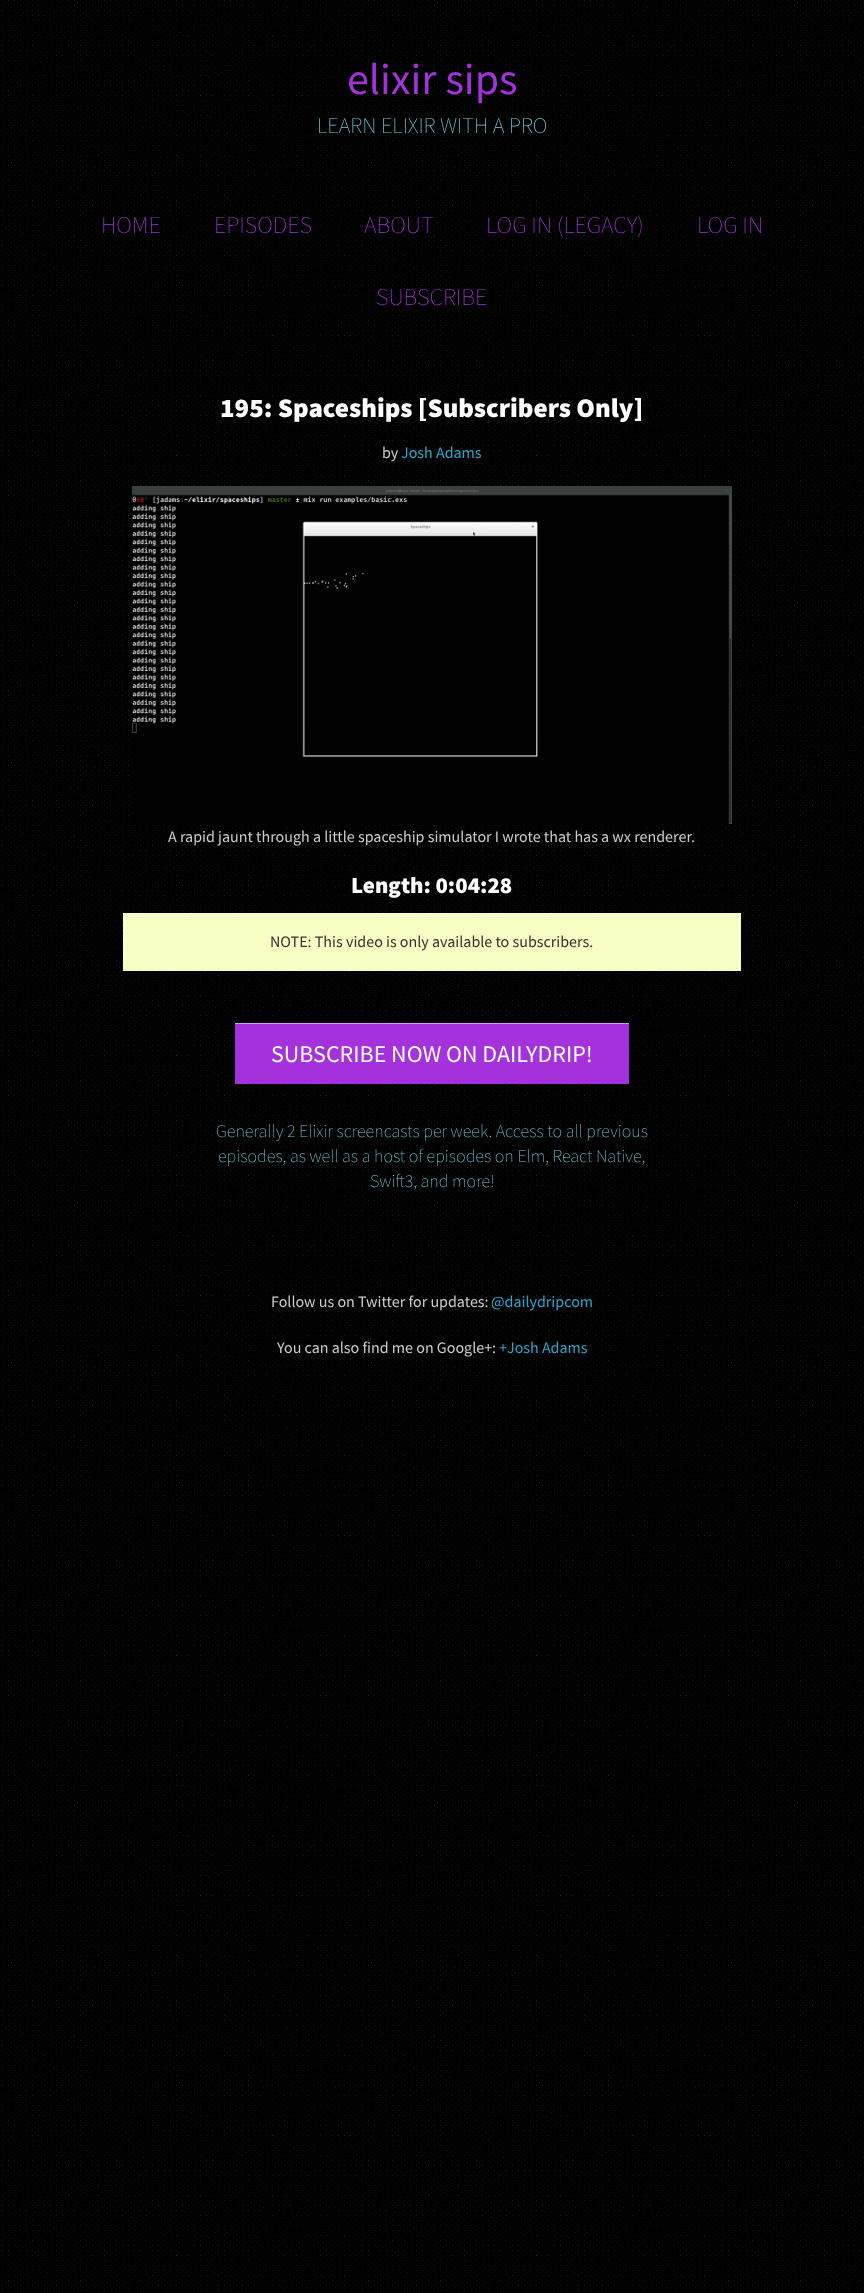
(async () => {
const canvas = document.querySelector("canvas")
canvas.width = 864
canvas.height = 2293
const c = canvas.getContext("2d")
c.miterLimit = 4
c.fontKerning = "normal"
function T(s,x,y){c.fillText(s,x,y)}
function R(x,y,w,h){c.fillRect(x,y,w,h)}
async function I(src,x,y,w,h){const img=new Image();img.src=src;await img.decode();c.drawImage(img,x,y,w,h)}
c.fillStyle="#fff"
R(0,0,864,2293)
await I("1.png",0,0,864,2293)
c.font="44px Source Sans Pro"
c.fillStyle="#a531dd"
T("elixir sips",347,94)
c.font="200 22.4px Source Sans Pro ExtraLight"
c.fillStyle="#6dc8df"
T("LEARN ELIXIR WITH A PRO",317,133)
c.font="200 24px Source Sans Pro ExtraLight"
c.fillStyle="#a531dd"
T("HOME",101,233)
T("EPISODES",214,233)
T("ABOUT",364,233)
T("LOG IN (LEGACY)",486,233)
T("LOG IN",697,233)
T("SUBSCRIBE",376,305)
c.font="900 27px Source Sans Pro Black"
c.fillStyle="#fff"
T("195: Spaceships [Subscribers Only]",220,417)
c.font="16px Source Sans Pro"
c.fillStyle="#ccc"
T("by",382,458)
c.fillStyle="#2ba6cb"
T("Josh Adams",401,458)
await I("2.png",132,486,600,338)
c.fillStyle="#ccc"
T("A rapid jaunt through a little spaceship simulator I wrote that has a wx renderer.",168,842)
c.font="900 23px Source Sans Pro Black"
c.fillStyle="#fff"
T("Length: 0:04:28",351,893)
c.fillStyle="#f8ffc5"
R(123,913,618,58)
c.font="16px Source Sans Pro"
c.fillStyle="#333"
T("NOTE: This video is only available to subscribers.",270,947)
c.fillStyle="#a531dd"
R(235,1024,394,60)
c.fillStyle="#d298ee"
R(235,1023,394,1)
c.font="24px Source Sans Pro"
c.fillStyle="#fff"
T("SUBSCRIBE NOW ON DAILYDRIP!",271,1062)
c.font="200 18px Source Sans Pro ExtraLight"
c.fillStyle="#6dc8df"
T("Generally 2 Elixir screencasts per week. Access to all previous",216,1137)
T("episodes, as well as a host of episodes on Elm, React Native,",218,1162)
T("Swift3, and more!",370,1187)
c.font="16px Source Sans Pro"
c.fillStyle="#ccc"
T("Follow us on Twitter for updates:",271,1307)
c.fillStyle="#2ba6cb"
T("@dailydripcom",491,1307)
c.fillStyle="#ccc"
T("You can also find me on Google+:",277,1353)
c.fillStyle="#2ba6cb"
T("+Josh Adams",499,1353)
})()
